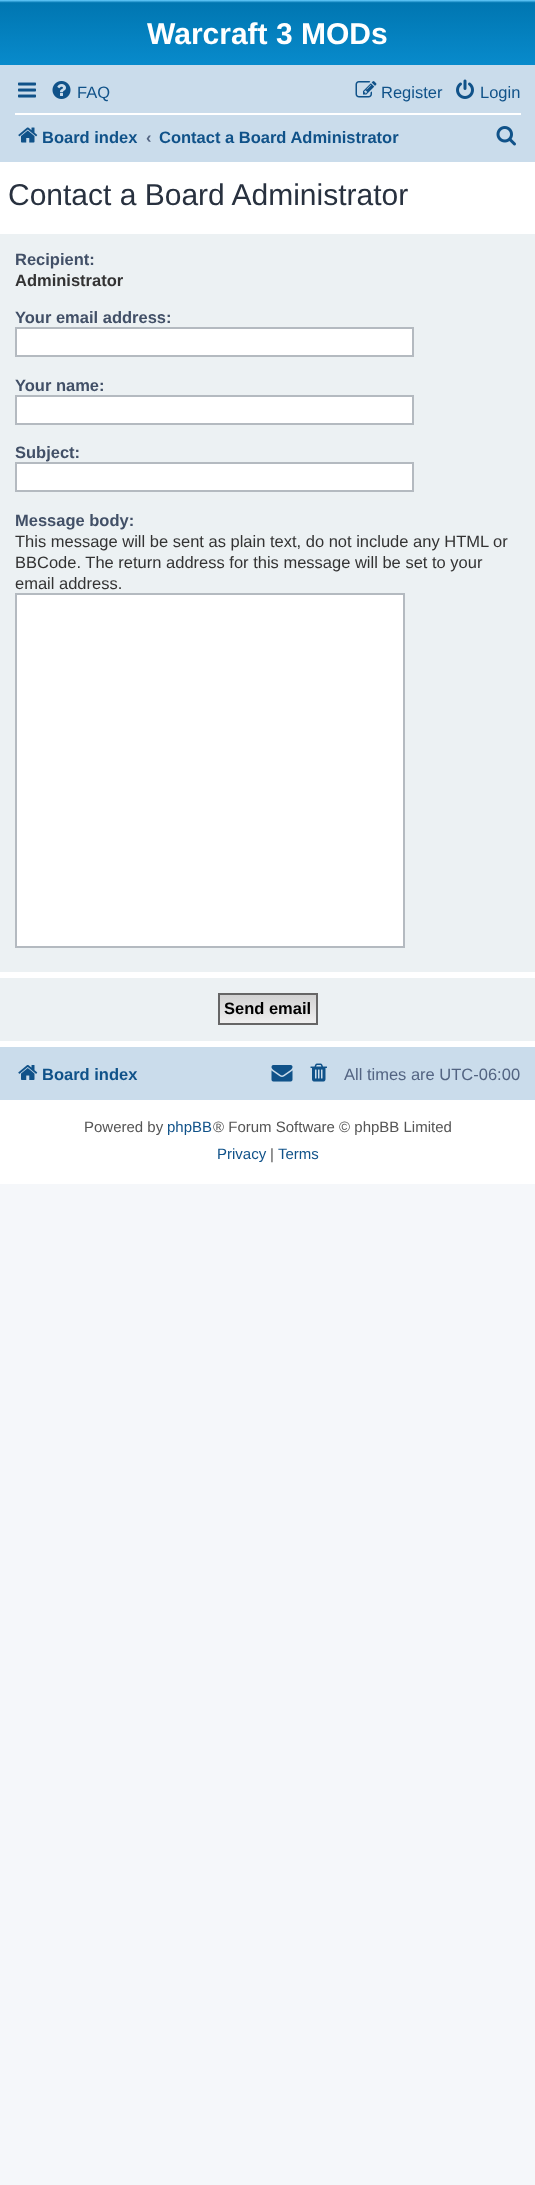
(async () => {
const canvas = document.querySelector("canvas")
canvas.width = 535
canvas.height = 2185
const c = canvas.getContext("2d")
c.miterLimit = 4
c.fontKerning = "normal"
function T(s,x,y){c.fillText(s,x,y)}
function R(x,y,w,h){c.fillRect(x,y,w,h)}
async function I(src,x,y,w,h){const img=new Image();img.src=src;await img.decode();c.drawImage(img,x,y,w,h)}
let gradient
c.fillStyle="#f5f7fa"
R(0,0,535,2185)
c.fillStyle="#fff"
R(0,162,535,1022)
gradient = c.createLinearGradient(268,0,268,138)
gradient.addColorStop(0,"#6aceff")
gradient.addColorStop(.02,"#0076b1")
gradient.addColorStop(1,"#12a3eb")
c.fillStyle = gradient
R(0,0,535,65)
c.font="bold 30px Liberation Sans"
c.fillStyle="#fff"
T("Warcraft 3 MODs",147,44)
c.fillStyle="#cadceb"
R(0,65,535,97)
await I("1.png",18,82,18,16)
await I("2.png",52,81,19,18)
c.font="16.5px Liberation Sans"
c.fillStyle="#105289"
T("FAQ",77,98)
await I("3.png",355,81,22,17)
T("Register",381,98)
await I("4.png",456,79,18,20)
T("Login",480,98)
c.fillStyle="#fff"
R(15,113,506,2)
await I("5.png",18,127,20,16)
c.font="bold 16.5px Liberation Sans"
c.fillStyle="#105289"
T("Board index",42,143)
c.fillStyle="#536482"
T("‹",146,143)
c.fillStyle="#105289"
T("Contact a Board Administrator",159,143)
await I("6.png",496,126,20,20)
c.font="30px Liberation Sans"
c.fillStyle="#28313f"
T("Contact a Board Administrator",8,205)
c.fillStyle="#ecf1f3"
R(0,234,535,738)
c.font="bold 16.5px Liberation Sans"
c.fillStyle="#425067"
T("Recipient:",15,265)
c.fillStyle="#333"
T("Administrator",15,286)
c.fillStyle="#425067"
T("Your email address:",15,323)
c.fillStyle="#fff"
c.beginPath()
c.rect(16,328,397,28)
c.fill()
c.strokeStyle="#b4bac0"
c.lineWidth=2
c.stroke()
c.fillStyle="#425067"
T("Your name:",15,391)
c.fillStyle="#fff"
c.beginPath()
c.rect(16,396,397,28)
c.fill()
c.stroke()
c.fillStyle="#425067"
T("Subject:",15,458)
c.fillStyle="#fff"
c.beginPath()
c.rect(16,463,397,28)
c.fill()
c.stroke()
c.fillStyle="#425067"
T("Message body:",15,526)
c.font="16.5px Liberation Sans"
c.fillStyle="#333"
T("This message will be sent as plain text, do not include any HTML or",15,547)
T("BBCode. The return address for this message will be set to your",15,568)
T("email address.",15,589)
c.fillStyle="#fff"
c.beginPath()
c.rect(16,594,388,353)
c.fill()
c.stroke()
c.fillStyle="#ecf1f3"
R(0,978,535,63)
gradient = c.createLinearGradient(268,995,268,1023)
gradient.addColorStop(0,"#d2d2d2")
gradient.addColorStop(1,"#efefef")
c.fillStyle = gradient
R(220,995,96,28)
c.strokeStyle="#666"
c.strokeRect(219,994,98,30)
c.font="bold 16.5px Liberation Sans"
c.fillStyle="#000"
T("Send email",224,1014)
c.fillStyle="#cadceb"
R(0,1047,535,53)
await I("7.png",18,1065,20,15)
c.fillStyle="#105289"
T("Board index",42,1080)
await I("8.png",271,1065,22,17)
await I("9.png",310,1063,17,19)
c.font="16.5px Liberation Sans"
c.fillStyle="#536482"
T("All times are UTC-06:00",344,1080)
c.font="15px Liberation Sans"
c.fillStyle="#555"
T("Powered by",84,1132)
c.fillStyle="#105289"
T("phpBB",167,1132)
c.fillStyle="#555"
T("® Forum Software © phpBB Limited",213,1132)
c.fillStyle="#105289"
T("Privacy",217,1159)
c.fillStyle="#555"
T("|",270,1159)
c.fillStyle="#105289"
T("Terms",278,1159)
})()
